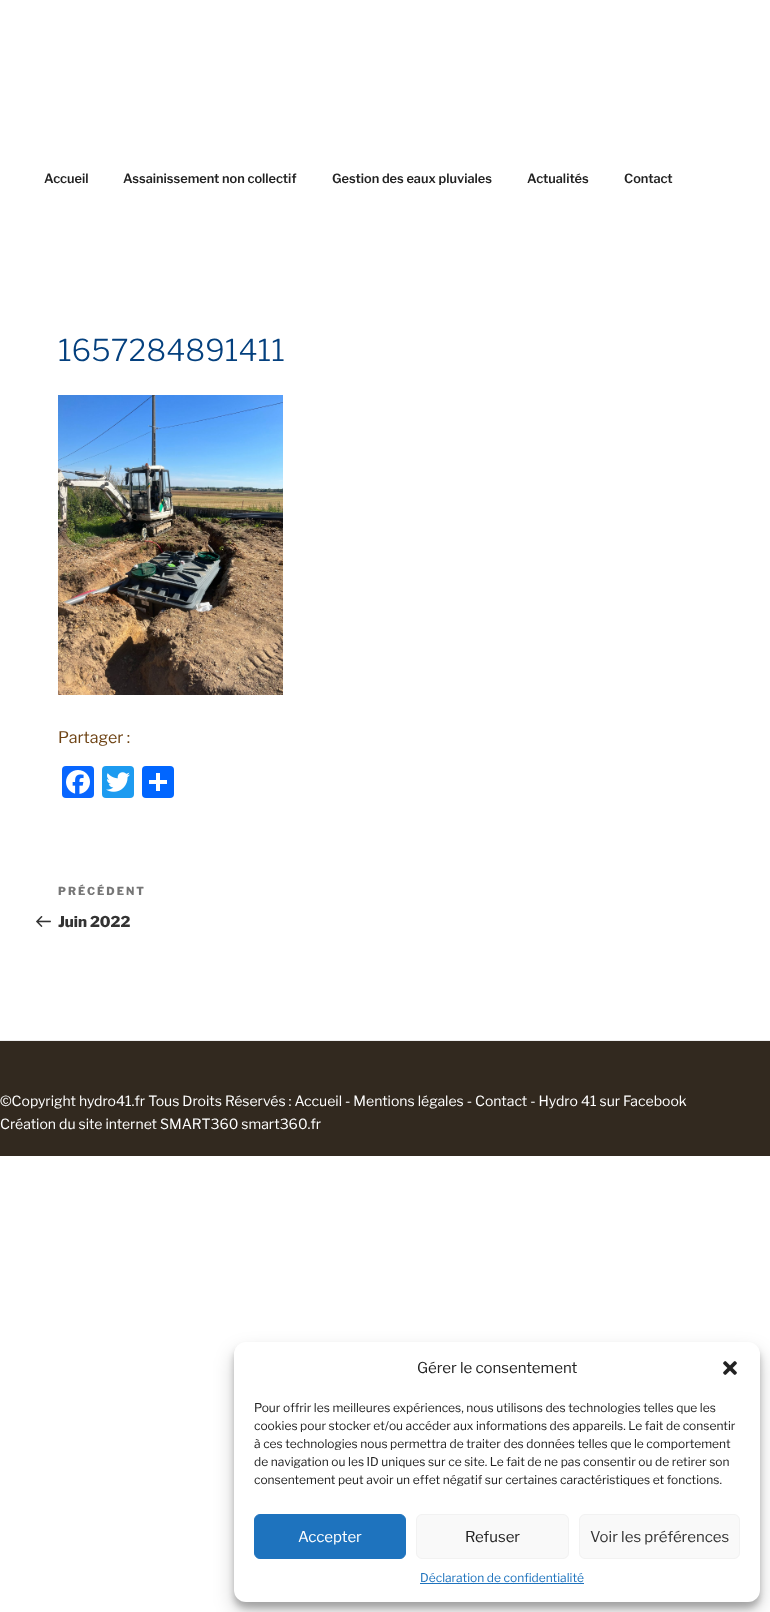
(async () => {
const canvas = document.querySelector("canvas")
canvas.width = 770
canvas.height = 1612
const c = canvas.getContext("2d")
c.miterLimit = 4
c.fontKerning = "normal"
function T(s,x,y){c.fillText(s,x,y)}
function R(x,y,w,h){c.fillRect(x,y,w,h)}
function Q(x,y,w,h,r){c.beginPath();c.roundRect(x,y,w,h,r);c.fill()}
async function I(src,x,y,w,h){const img=new Image();img.src=src;await img.decode();c.drawImage(img,x,y,w,h)}
c.fillStyle="#fff"
R(0,0,770,1612)
c.font="600 12.75px Libre Franklin"
c.fillStyle="#222"
T("Accueil",44,183)
T("Assainissement non collectif",123,183)
T("Gestion des eaux pluviales",332,183)
T("Actualités",527,183)
T("Contact",624,183)
c.font="300 30px Libre Franklin"
c.fillStyle="#04407e"
T("1657284891411",58,361)
await I("1.png",58,395,225,300)
c.font="16px Libre Franklin"
c.fillStyle="#6d4213"
T("Partager :",58,743)
c.fillStyle="#0866ff"
Q(62,766,32,32,4)
await I("2.png",66,770,24,24)
c.fillStyle="#1d9bf0"
Q(102,766,32,32,4)
await I("3.png",106,772,24,20)
c.fillStyle="#0166ff"
Q(142,766,32,32,4)
c.fillStyle="#fff"
R(156,773,4,18)
R(149,780,18,4)
c.letterSpacing="2px"
c.font="800 11px Libre Franklin"
c.fillStyle="#767676"
T("PRÉCÉDENT",58,895)
await I("4.png",36,916,15,11)
c.letterSpacing="0px"
c.font="800 15px Libre Franklin"
c.fillStyle="#333"
T("Juin 2022",58,927)
c.fillStyle="#32291f"
R(0,1041,770,115)
c.fillStyle="#eee"
R(0,1040,770,1)
c.font="14px Libre Franklin"
c.fillStyle="#fff"
T("©Copyright hydro41.fr Tous Droits Réservés : Accueil - Mentions légales - Contact - Hydro 41 sur Facebook",0,1106)
T("Création du site internet SMART360 smart360.fr",0,1129)
c.fillStyle="#0000003b"
c.filter="blur(3px)"
c.beginPath()
c.roundRect(234,1348,526,260,12)
c.fill()
c.filter="none"
c.fillStyle="#00000030"
c.filter="blur(10px)"
c.beginPath()
c.roundRect(234,1352,526,260,12)
c.fill()
c.filter="none"
c.fillStyle="#fff"
Q(234,1342,526,260,12)
c.font="15px Libre Franklin"
c.fillStyle="#222"
T("Gérer le consentement",417,1373)
await I("5.png",723,1361,14,14)
c.font="12px Libre Franklin"
T("Pour offrir les meilleures expériences, nous utilisons des technologies telles que les",254,1412)
T("cookies pour stocker et/ou accéder aux informations des appareils. Le fait de consentir",254,1430)
T("à ces technologies nous permettra de traiter des données telles que le comportement",254,1448)
T("de navigation ou les ID uniques sur ce site. Le fait de ne pas consentir ou de retirer son",254,1466)
T("consentement peut avoir un effet négatif sur certaines caractéristiques et fonctions.",254,1484)
c.fillStyle="#1e73be"
c.beginPath()
c.roundRect(254.5,1514.5,151,44,5.5)
c.fill()
c.strokeStyle="#1e73be"
c.stroke()
c.font="15px Libre Franklin"
c.fillStyle="#fff"
T("Accepter",298,1542)
c.fillStyle="#f9f9f9"
c.beginPath()
c.roundRect(416.5,1514.5,152,44,5.5)
c.fill()
c.strokeStyle="#f2f2f2"
c.stroke()
c.fillStyle="#222"
T("Refuser",465,1542)
c.fillStyle="#f9f9f9"
c.beginPath()
c.roundRect(579.5,1514.5,160,44,5.5)
c.fill()
c.stroke()
c.fillStyle="#333"
T("Voir les préférences",590,1542)
c.font="12px Libre Franklin"
c.fillStyle="#1e73be"
T("Déclaration de confidentialité",420,1582)
R(420,1583,164,1)
})()
